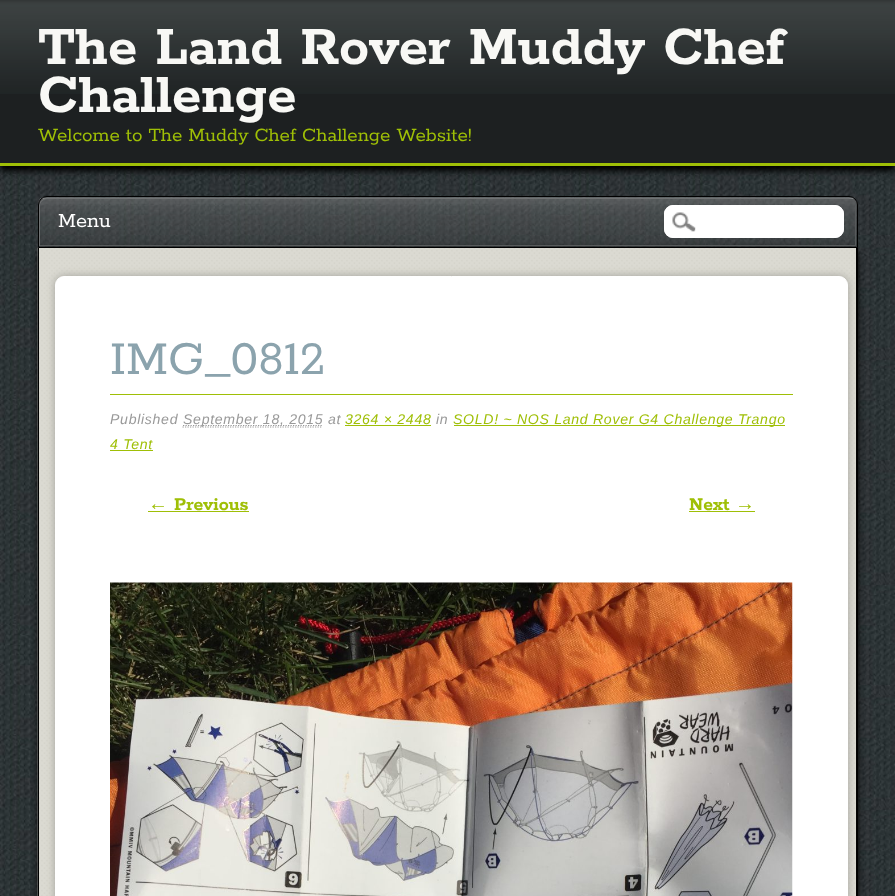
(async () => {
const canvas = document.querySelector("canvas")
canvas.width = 895
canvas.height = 896
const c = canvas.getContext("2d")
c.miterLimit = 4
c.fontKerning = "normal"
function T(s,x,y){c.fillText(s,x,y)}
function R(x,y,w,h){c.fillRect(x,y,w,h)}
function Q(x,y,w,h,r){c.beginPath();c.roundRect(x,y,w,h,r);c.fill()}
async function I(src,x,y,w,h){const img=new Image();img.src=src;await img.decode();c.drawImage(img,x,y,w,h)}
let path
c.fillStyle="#fff"
R(0,0,895,896)
await I("1.png",0,166,895,730)
c.fillStyle="#000"
c.filter="blur(3px)"
c.beginPath()
c.rect(0,6,895,165)
c.fill()
c.filter="none"
c.fillStyle="#1d2021"
R(0,94,895,69)
await I("2.png",0,0,895,94)
c.fillStyle="#9fbf06"
R(0,163,895,3)
c.font="bold 60px Rokkitt"
c.fillStyle="#f8f8f5"
T("The Land Rover Muddy Chef",38,64)
T("Challenge",38,112)
c.font="21px Rokkitt"
c.fillStyle="#9fbf06"
T("Welcome to The Muddy Chef Challenge Website!",38,141)
c.fillStyle="#000"
c.filter="blur(3px)"
c.beginPath()
c.roundRect(38,248,820,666,9)
c.fill()
c.filter="none"
await I("3.png",37,197,821,50)
c.fillStyle="#575a5b"
path = new Path2D("M39 245v1h817v-40c0-2-1-3-1-4v43z")
c.fill(path)
c.fillStyle="#707273"
path = new Path2D("M48 199h802h2c-1 0-2-1-4-1h-801c-4 0-8 4-8 8v40h1v-40c0-4 3-7 8-7z")
c.fill(path)
await I("5.png",37,247,819,649)
c.beginPath()
c.roundRect(38.5,196.5,819,51,[8.5,8.5,0,0])
c.strokeStyle="#000"
c.stroke()
c.font="22.5px Rokkitt"
c.fillStyle="#fff"
T("Menu",58,227)
Q(664,205,180,33,9)
await I("4.png",672,212,24,20)
c.beginPath()
c.roundRect(664.5,205.5,179,32,8.5)
c.strokeStyle="#fff"
c.stroke()
c.fillStyle="#000"
path = new Path2D("M38 248h820v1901c0 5-4 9-9 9h-803c-5 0-8-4-8-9zm1 0h817v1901c0 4-3 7-7 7h-803c-4 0-7-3-7-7z")
c.fill(path,"evenodd")
c.fillStyle="#a2a19b"
c.filter="blur(4.5px)"
c.beginPath()
c.roundRect(55,276,793,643,9)
c.fill()
c.filter="none"
c.fillStyle="#fff"
c.beginPath()
c.roundRect(55.5,276.5,792,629,8.5)
c.fill()
c.stroke()
c.fillStyle="#9fbf06"
R(110,394,683,1)
c.font="52.5px Rokkitt"
c.fillStyle="#8ba3ad"
T("IMG_0812",110,374)
c.letterSpacing="0.7px"
c.font="italic 14.1px Liberation Sans"
c.fillStyle="#999"
T("Published",110,424)
path = new Path2D("M182.5 427h140")
c.strokeStyle="#999"
c.lineWidth=1.2
c.setLineDash([1.25,1.25])
c.stroke(path)
path = new Path2D("M183 425.5h140")
c.stroke(path)
T("September 18, 2015 at",183,424)
c.fillStyle="#9fbf06"
T("3264 × 2448",345,424)
R(345,425,86,1)
c.fillStyle="#999"
T("in",436,424)
c.fillStyle="#9fbf06"
R(454,425,331,1)
T("SOLD! ~ NOS Land Rover G4 Challenge Trango",453,424)
T("4 Tent",110,449)
R(110,450,43,1)
c.letterSpacing="0px"
c.font="bold 20px Liberation Serif"
T("←",148,510)
R(148,511,101,1)
c.font="bold 20px Rokkitt"
T("Previous",174,510)
T("Next",689,510)
c.font="bold 20px Liberation Serif"
T("→",735,510)
R(689,511,66,1)
await I("6.png",110,582,683,314)
})()
